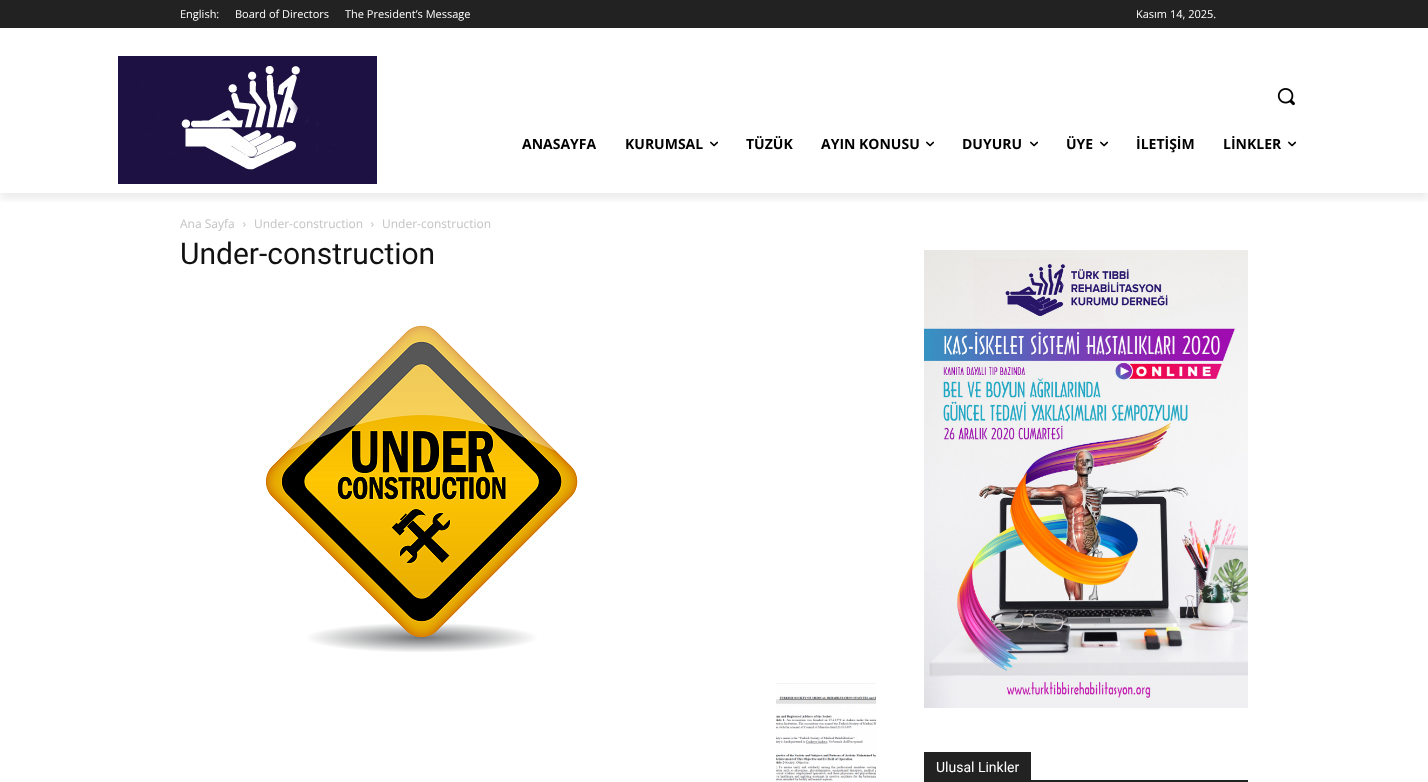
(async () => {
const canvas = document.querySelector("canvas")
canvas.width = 1428
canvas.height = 782
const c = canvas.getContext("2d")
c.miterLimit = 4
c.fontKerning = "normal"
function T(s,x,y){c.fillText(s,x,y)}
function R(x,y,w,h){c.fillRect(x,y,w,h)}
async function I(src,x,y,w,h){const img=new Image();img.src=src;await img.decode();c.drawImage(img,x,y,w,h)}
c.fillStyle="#fff"
R(0,0,1428,782)
c.fillStyle="#222"
R(0,0,1428,28)
await I("1.png",118,56,259,128)
c.save()
c.beginPath()
c.rect(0,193,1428,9)
c.clip()
c.fillStyle="#00000014"
c.filter="blur(4px)"
c.beginPath()
c.rect(0,6,1428,193)
c.fill()
c.filter="none"
c.restore()
c.font="11px Open Sans"
c.fillStyle="#fff"
T("English:",180,18)
T("Board of Directors",235,18)
T("The President’s Message",345,18)
T("Kasım 14, 2025.",1136,18)
await I("2.png",1277,88,18,18)
c.font="bold 14px Open Sans"
c.fillStyle="#000"
T("ANASAYFA",522,149)
T("KURUMSAL",625,149)
await I("3.png",710,141,9,6)
T("TÜZÜK",746,149)
T("AYIN KONUSU",821,149)
await I("3.png",926,141,9,6)
T("DUYURU",962,149)
await I("3.png",1030,141,9,6)
T("ÜYE",1066,149)
await I("3.png",1100,141,9,6)
T("İLETİŞİM",1136,149)
T("LİNKLER",1223,149)
await I("3.png",1288,141,9,6)
c.font="12px Open Sans"
c.fillStyle="#c3c3c3"
T("Ana Sayfa",180,228)
await I("4.png",243,222,3,5)
T("Under-construction",254,228)
await I("4.png",371,222,3,5)
T("Under-construction",382,228)
c.font="30px Roboto"
c.fillStyle="#111"
T("Under-construction",180,264)
await I("5.png",266,325,312,327)
await I("6.png",776,683,100,98)
await I("7.png",924,250,324,458)
c.fillStyle="#222"
R(924,780,324,2)
R(924,752,107,28)
c.font="14px Roboto"
c.fillStyle="#fff"
T("Ulusal Linkler",936,772)
})()
